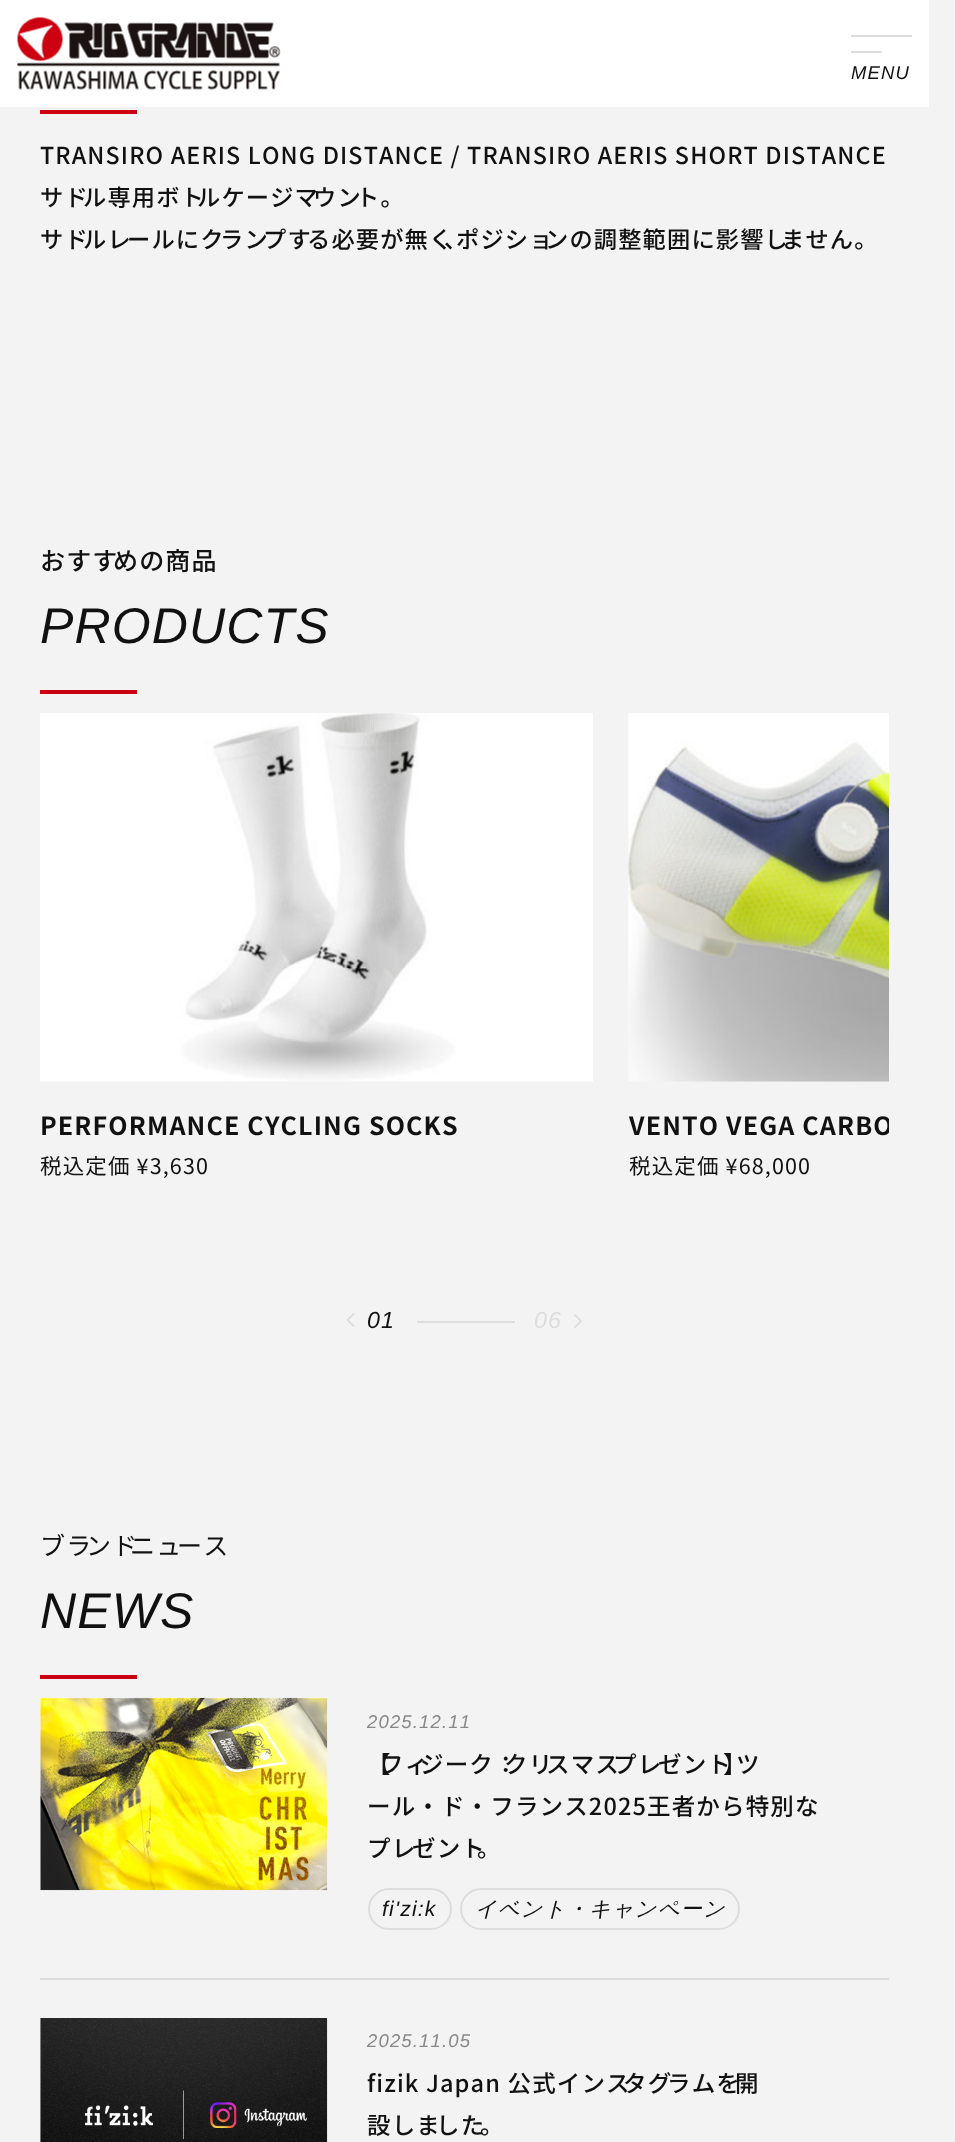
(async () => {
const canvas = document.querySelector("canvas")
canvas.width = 955
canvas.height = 2142
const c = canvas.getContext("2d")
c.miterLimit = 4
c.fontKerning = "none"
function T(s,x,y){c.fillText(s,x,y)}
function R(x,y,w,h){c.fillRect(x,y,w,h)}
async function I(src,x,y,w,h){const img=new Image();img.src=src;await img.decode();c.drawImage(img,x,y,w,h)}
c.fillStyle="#f3f3f3"
R(0,0,955,2142)
c.fillStyle="#fff"
R(0,0,929,107)
await I("1.png",17,17,264,73)
c.fillStyle="#ddd"
R(851,35,61,2)
R(851,51,31,2)
c.letterSpacing="1.15px"
c.font="italic 18.5px Liberation Sans"
c.fillStyle="#111"
T("MENU",851,79)
c.fillStyle="#c01"
R(40,110,97,4)
c.font="500 23.25px Noto Sans JP"
c.fillStyle="#111"
T("TRANSIRO AERIS LONG DISTANCE / TRANSIRO AERIS SHORT DISTANCE",40,164)
T("サド",40,206)
T("ル専用ボト",83,206)
T("ルケージマ",197,206)
T("ウン",313,206)
T("ト。",356,206)
T("サド",40,248)
T("ルレ",83,248)
T("ールにク",127,248)
T("ラン",220,248)
T("プす",263,248)
T("る必要が無く",307,248)
T("、",444,248)
T("ポジショ",456,248)
T("ンの調整範囲に影響し",545,248)
T("ません。",781,248)
c.font="500 25px Noto Sans JP"
T("おすす",40,570)
T("めの商品",113,570)
c.font="italic 50px Liberation Sans"
T("PRODUCTS",40,643)
c.fillStyle="#c01"
R(40,690,97,4)
await I("2.png",40,713,553,369)
c.font="bold 25px Noto Sans JP"
c.fillStyle="#111"
T("PERFORMANCE CYCLING SOCKS",40,1135)
c.font="21.5px Noto Sans JP"
T("税込定価 ¥3,630",40,1174)
await I("3.png",628,713,261,369)
c.save()
c.beginPath()
c.rect(40,712,849,623)
c.clip()
c.font="bold 25px Noto Sans JP"
T("VENTO VEGA CARBO",629,1135)
c.restore()
T("税込定価 ¥68,000",629,1174)
c.font="italic 23.25px Liberation Sans"
T("01",367,1328)
c.fillStyle="#ddd"
T("06",534,1328)
await I("4.png",346,1313,9,14)
await I("5.png",574,1314,8,14)
R(417,1321,98,2)
c.font="25px Noto Sans JP"
c.fillStyle="#111"
T("ブラ",40,1555)
T("ンド",86,1555)
T("ニュ",130,1555)
T("ース",177,1555)
c.font="italic 50px Liberation Sans"
T("NEWS",40,1628)
c.fillStyle="#c01"
R(40,1675,97,4)
c.fillStyle="#ddd"
R(40,1978,849,2)
await I("6.png",40,1697,288,194)
c.font="italic 18.5px Liberation Sans"
c.fillStyle="#888"
T("2025.12.11",367,1728)
c.font="500 23.5px Noto Sans JP"
c.fillStyle="#111"
T("【",367,1773)
T("フィ",380,1773)
T("ジーク：",420,1773)
T("クリ",504,1773)
T("スマス",546,1773)
T("プレ",613,1773)
T("ゼント",658,1773)
T("】",723,1773)
T("ツ",736,1773)
c.font="500 23.5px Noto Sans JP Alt"
T("ール・ド・フランス2025王者から特別な",367,1815)
c.font="500 23.5px Noto Sans JP"
T("プレ",367,1857)
T("ゼント",412,1857)
T("。",477,1857)
c.beginPath()
c.roundRect(369,1889,82,40,20)
c.strokeStyle="#ddd"
c.lineWidth=2
c.stroke()
c.font="italic 21.25px Liberation Sans"
T("fi'zi:k",382,1916)
c.beginPath()
c.roundRect(461,1889,278,40,20)
c.stroke()
c.font="italic 500 21.25px WenQuanYi Zen Hei"
T("イベント・キャンペーン",475,1916)
await I("7.png",40,2018,288,124)
c.font="italic 18.5px Liberation Sans"
c.fillStyle="#888"
T("2025.11.05",367,2047)
c.font="500 23.5px Noto Sans JP"
c.fillStyle="#111"
T("fizik Japan 公式インス",367,2092)
T("タグ",623,2092)
T("ラムを",667,2092)
T("開",735,2092)
T("設しま",367,2134)
T("した",436,2134)
T("。",480,2134)
})()
